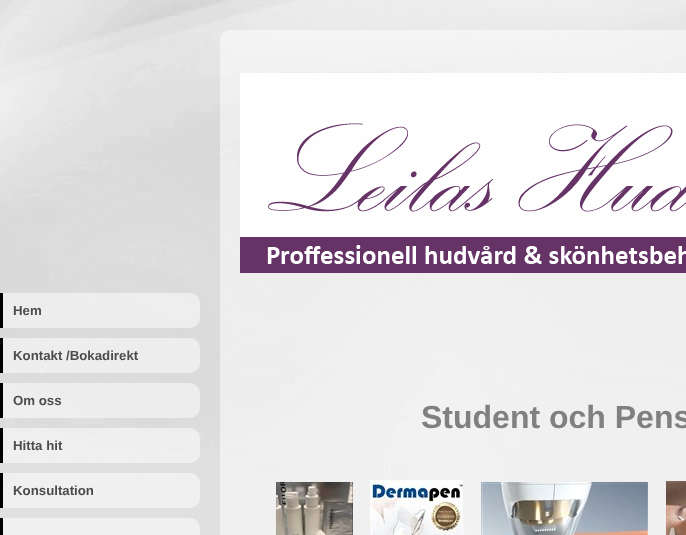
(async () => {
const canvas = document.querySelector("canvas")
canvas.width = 686
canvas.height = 535
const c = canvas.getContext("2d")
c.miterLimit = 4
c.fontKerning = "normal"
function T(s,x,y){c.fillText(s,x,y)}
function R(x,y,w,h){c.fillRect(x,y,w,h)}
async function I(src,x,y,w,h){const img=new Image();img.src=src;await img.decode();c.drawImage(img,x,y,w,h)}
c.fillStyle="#fff"
R(0,0,686,535)
await I("1.png",0,0,686,535)
await I("2.png",220,30,466,43)
c.fillStyle="#ffffff80"
R(220,73,20,200)
await I("3.png",240,73,446,200)
await I("4.png",3,293,197,35)
c.fillStyle="#000"
R(0,293,3,35)
c.font="bold 13.25px Liberation Sans"
c.fillStyle="#4c4c4c"
T("Hem",13,315)
await I("5.png",3,338,197,35)
c.fillStyle="#000"
R(0,338,3,35)
c.fillStyle="#4c4c4c"
T("Kontakt /Bokadirekt",13,360)
await I("6.png",3,383,197,35)
c.fillStyle="#000"
R(0,383,3,35)
c.fillStyle="#4c4c4c"
T("Om oss",13,405)
await I("7.png",3,428,197,35)
c.fillStyle="#000"
R(0,428,3,35)
c.fillStyle="#4c4c4c"
T("Hitta hit",13,450)
await I("8.png",3,473,197,35)
c.fillStyle="#000"
R(0,473,3,35)
c.fillStyle="#4c4c4c"
T("Konsultation",13,495)
await I("9.png",3,518,197,17)
c.fillStyle="#000"
R(0,518,3,17)
c.fillStyle="#ffffff80"
R(220,273,466,262)
c.font="bold 32px Liberation Sans"
c.fillStyle="#808080"
T("Student och Pens",421,428)
await I("10.png",276,482,77,53)
await I("11.png",370,480,93,55)
await I("12.png",481,482,167,53)
await I("13.png",666,481,20,54)
})()
